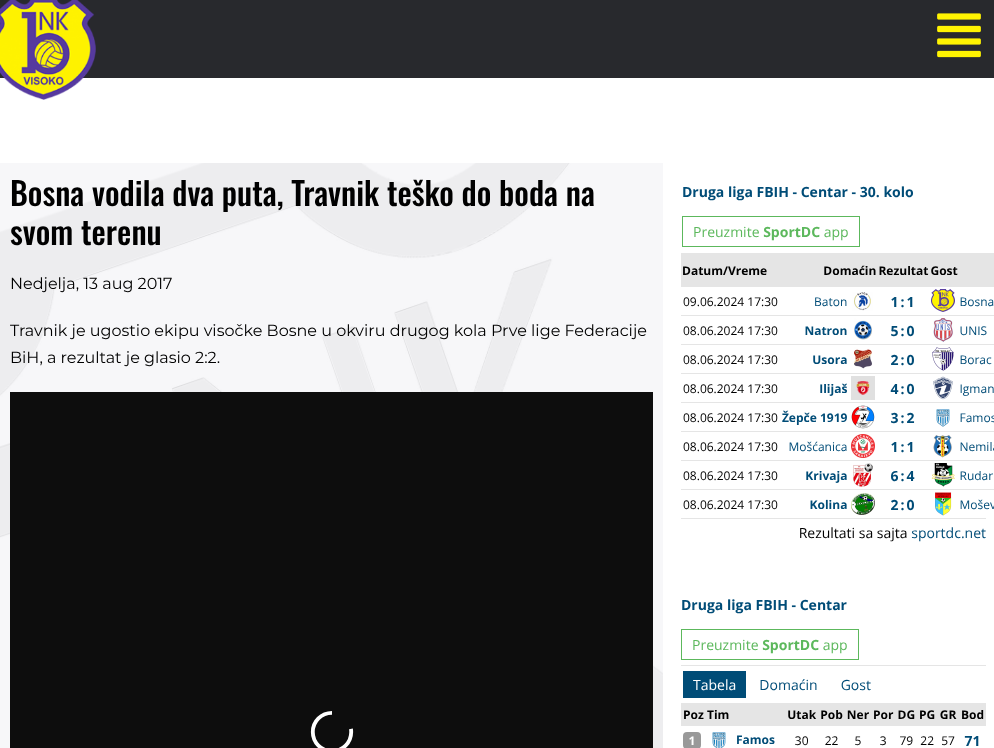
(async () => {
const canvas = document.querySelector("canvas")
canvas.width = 994
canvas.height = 748
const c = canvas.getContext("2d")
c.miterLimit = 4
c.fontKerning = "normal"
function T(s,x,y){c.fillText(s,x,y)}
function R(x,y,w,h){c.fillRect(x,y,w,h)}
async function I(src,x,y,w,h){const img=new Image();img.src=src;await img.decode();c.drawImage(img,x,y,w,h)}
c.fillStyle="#fff"
R(0,0,994,748)
c.fillStyle="#28292d"
R(0,0,994,78)
await I("1.png",0,0,96,100)
await I("2.png",937,13,44,45)
c.fillStyle="#f5f5f7"
R(0,163,663,585)
await I("3.png",0,163,663,585)
c.font="500 32px Oswald"
c.fillStyle="#000"
T("Bosna vodila dva puta, Travnik teško do boda na",10,206)
T("svom terenu",10,245)
c.font="16px Montserrat"
T("Nedjelja, 13 aug 2017",10,289)
T("Travnik je ugostio ekipu visočke Bosne u okviru drugog kola Prve lige Federacije",10,336)
T("BiH, a rezultat je glasio 2:2.",10,363)
await I("4.png",10,392,643,356)
await I("5.png",681,186,313,356)
await I("6.png",681,599,305,149)
})()
